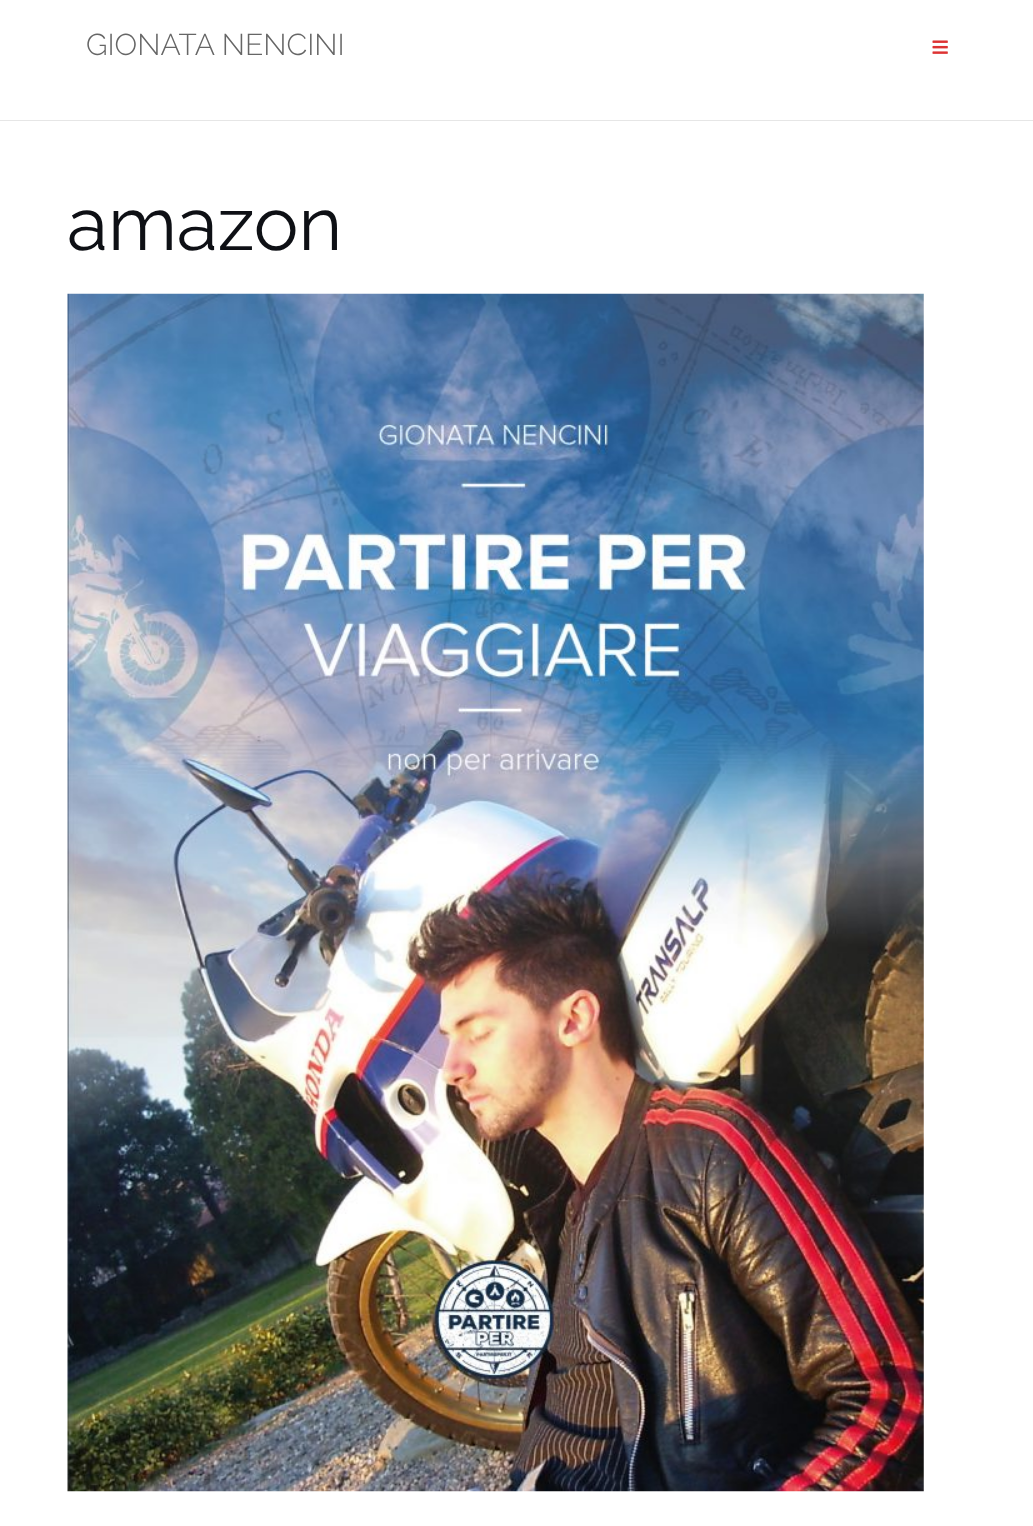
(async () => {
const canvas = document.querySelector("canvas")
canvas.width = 1033
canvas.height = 1526
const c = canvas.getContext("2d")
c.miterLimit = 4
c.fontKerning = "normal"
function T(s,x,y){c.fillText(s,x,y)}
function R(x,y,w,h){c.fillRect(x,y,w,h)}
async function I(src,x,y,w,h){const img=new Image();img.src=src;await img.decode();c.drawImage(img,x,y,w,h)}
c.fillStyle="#fff"
R(0,0,1033,1526)
c.fillStyle="#e6e6e6"
R(0,120,1033,1)
c.font="300 30px Raleway"
c.fillStyle="#666"
T("GIONATA NENCINI",86,55)
await I("1.png",932,40,16,14)
c.font="75px Raleway"
c.fillStyle="#0e1015"
T("amazon",67,250)
await I("2.png",67,293,857,1199)
})()
